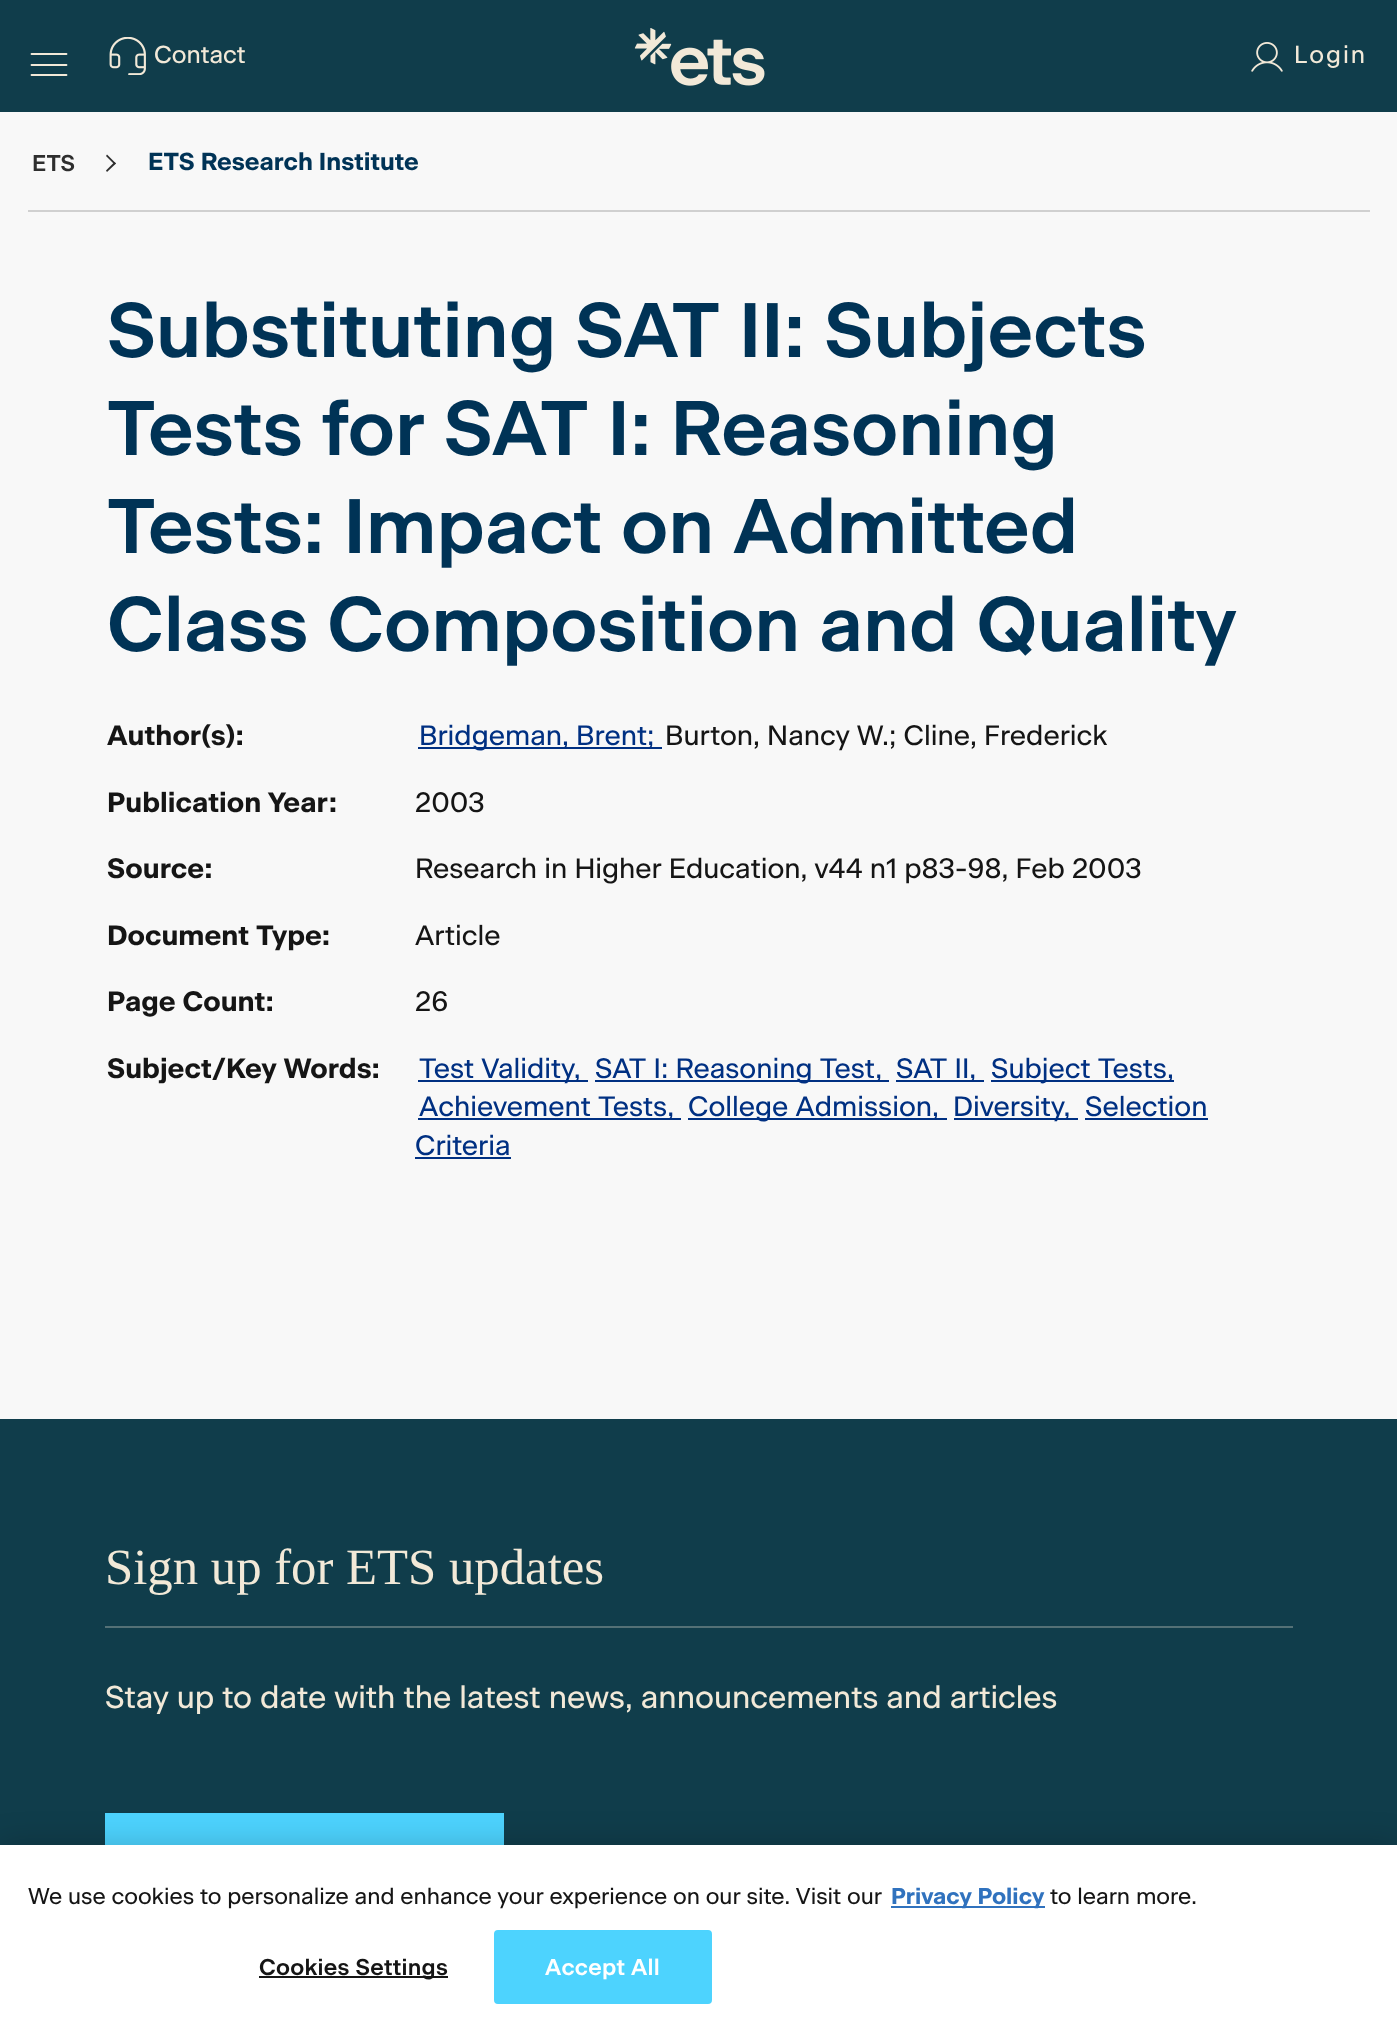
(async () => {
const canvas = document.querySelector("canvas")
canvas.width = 1397
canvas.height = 2031
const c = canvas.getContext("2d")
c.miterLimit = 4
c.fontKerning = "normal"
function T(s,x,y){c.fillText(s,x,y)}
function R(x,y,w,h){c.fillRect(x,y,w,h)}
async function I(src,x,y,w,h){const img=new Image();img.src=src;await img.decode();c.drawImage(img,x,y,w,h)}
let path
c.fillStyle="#f8f8f8"
R(0,0,1397,2031)
c.fillStyle="#103d4b"
R(0,0,1397,112)
path = new Path2D("M31.5 54h35m-35 11h35m-35 10h35")
c.strokeStyle="#f2e9d8"
c.lineWidth=1.8
c.lineCap="round"
c.lineJoin="round"
c.stroke(path)
await I("1.png",109,37,37,38)
c.font="24.5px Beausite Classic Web"
c.fillStyle="#f2e9d8"
T("Contact",154,63)
await I("2.png",634,28,131,58)
await I("3.png",1251,42,32,30)
c.letterSpacing="2px"
T("Login",1294,63)
c.fillStyle="#d0d0d0"
R(28,210,1342,2)
c.letterSpacing="0px"
c.font="600 22.75px Beausite Classic Web"
c.fillStyle="#2e2e2e"
T("ETS",32,171)
path = new Path2D("M106 156l1-1.5l9 9l-1.5 1z")
c.fill(path)
path = new Path2D("M106 170.5l8.5-8.5l1.5 1.5l-9 8.5z")
c.fill(path)
c.font="bold 24.5px Beausite Classic Web"
c.fillStyle="#003356"
T("ETS Research Institute",148,170)
c.font="600 77px Beausite Classic Web"
T("Substituting SAT II: Subjects",107,357)
T("Tests for SAT I: Reasoning",107,455)
T("Tests: Impact on Admitted",107,553)
T("Class Composition and Quality",107,651)
c.font="bold 28px Beausite Classic Web"
c.fillStyle="#151515"
T("Author(s):",107,745)
c.fillStyle="#003082"
R(418,747,244,2)
c.font="28px Beausite Classic Web"
T("Bridgeman, Brent;",419,745)
c.fillStyle="#151515"
T("Burton, Nancy W.; Cline, Frederick",665,745)
c.font="bold 28px Beausite Classic Web"
T("Publication Year:",107,812)
c.font="28px Beausite Classic Web"
T("2003",415,812)
c.font="bold 28px Beausite Classic Web"
T("Source:",107,878)
c.font="28px Beausite Classic Web"
T("Research in Higher Education, v44 n1 p83-98, Feb 2003",415,878)
c.font="bold 28px Beausite Classic Web"
T("Document Type:",107,945)
c.font="28px Beausite Classic Web"
T("Article",415,945)
c.font="bold 28px Beausite Classic Web"
T("Page Count:",107,1011)
c.font="28px Beausite Classic Web"
T("26",415,1011)
c.font="bold 28px Beausite Classic Web"
T("Subject/Key Words:",107,1078)
c.fillStyle="#003082"
R(418,1080,170,2)
c.font="28px Beausite Classic Web"
T("Test Validity,",419,1078)
R(595,1080,294,2)
T("SAT I: Reasoning Test,",595,1078)
R(896,1080,88,2)
T("SAT II,",896,1078)
R(991,1080,183,2)
T("Subject Tests,",991,1078)
R(418,1118,263,2)
T("Achievement Tests,",419,1116)
R(688,1118,259,2)
T("College Admission,",688,1116)
R(954,1118,124,2)
T("Diversity,",953,1116)
T("Selection",1085,1116)
R(1085,1118,123,2)
T("Criteria",415,1155)
R(415,1157,96,2)
c.fillStyle="#103d4b"
R(0,1419,1397,426)
c.fillStyle="#547176"
R(105,1626,1188,2)
c.font="50.75px Liberation Serif"
c.fillStyle="#f2e9d8"
T("Sign up for ETS updates",105,1584)
c.font="31.5px Beausite Classic Web"
T("Stay up to date with the latest news, announcements and articles",105,1708)
c.fillStyle="#4dd3fe"
R(105,1813,399,32)
c.fillStyle="#00000033"
c.filter="blur(16px)"
c.beginPath()
c.rect(0,1845,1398,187)
c.fill()
c.filter="none"
c.fillStyle="#fff"
R(0,1845,1397,186)
c.font="22.75px Beausite Classic Web"
c.fillStyle="#151515"
T("We use cookies to personalize and enhance your experience on our site. Visit our",28,1904)
c.fillStyle="#3072be"
R(891,1906,154,2)
c.font="bold 22.75px Beausite Classic Web"
T("Privacy Policy",891,1904)
c.font="22.75px Beausite Classic Web"
c.fillStyle="#151515"
T("to learn more.",1050,1904)
R(259,1976,189,2)
c.letterSpacing="0.25px"
c.font="600 22.75px Beausite Classic Web"
T("Cookies Settings",259,1975)
c.fillStyle="#4dd3fe"
c.beginPath()
c.roundRect(495,1931,216,72,3)
c.fill()
c.strokeStyle="#4dd3fe"
c.lineWidth=2
c.lineJoin="miter"
c.stroke()
c.fillStyle="#fff"
T("Accept All",545,1975)
})()
